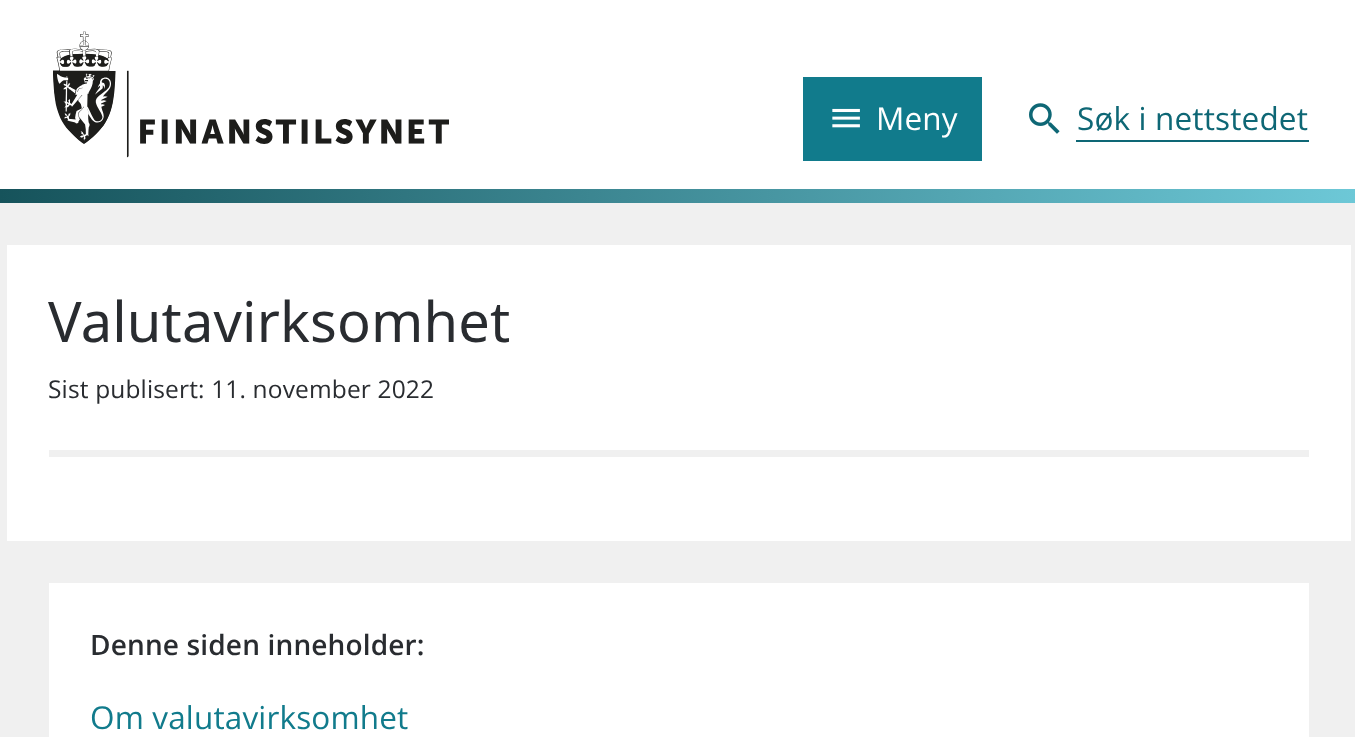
(async () => {
const canvas = document.querySelector("canvas")
canvas.width = 1355
canvas.height = 737
const c = canvas.getContext("2d")
c.miterLimit = 4
c.fontKerning = "normal"
function T(s,x,y){c.fillText(s,x,y)}
function R(x,y,w,h){c.fillRect(x,y,w,h)}
async function I(src,x,y,w,h){const img=new Image();img.src=src;await img.decode();c.drawImage(img,x,y,w,h)}
let gradient
c.fillStyle="#f0f0f0"
R(0,0,1355,737)
c.fillStyle="#fff"
R(0,0,1355,189)
await I("1.png",53,31,396,127)
c.fillStyle="#117b8c"
R(803,77,179,84)
await I("2.png",832,108,28,20)
c.letterSpacing="0.15px"
c.font="31.5px Open Sans"
c.fillStyle="#fff"
T("Meny",876,130)
await I("3.png",1029,103,31,31)
c.fillStyle="#0e6775"
T("Søk i nettstedet",1077,130)
R(1076,140,233,2)
gradient = c.createLinearGradient(0,196,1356,196)
gradient.addColorStop(0,"#16535b")
gradient.addColorStop(1,"#6dc8d7")
c.fillStyle = gradient
R(0,189,1355,14)
c.fillStyle="#fff"
R(7,245,1344,296)
c.font="56px Noto Sans"
c.fillStyle="#292c30"
T("Valutavirksomhet",48,342)
c.font="24.5px Open Sans"
T("Sist publisert: 11. november 2022",48,398)
c.fillStyle="#f0f0f0"
R(49,450,1260,7)
c.fillStyle="#fff"
R(49,583,1260,154)
c.font="600 28px Open Sans"
c.fillStyle="#292c30"
T("Denne siden inneholder:",90,655)
c.font="31.5px Open Sans"
c.fillStyle="#117b8c"
T("Om valutavirksomhet",90,729)
})()
